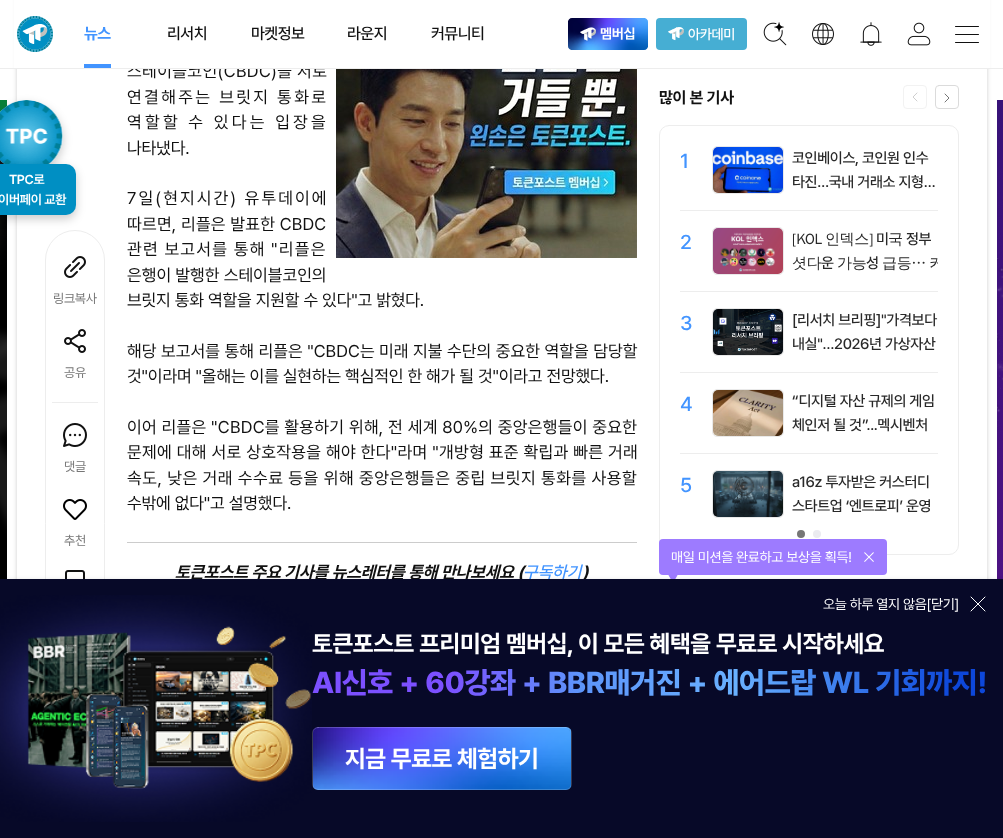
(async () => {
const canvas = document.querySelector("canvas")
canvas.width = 1003
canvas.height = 838
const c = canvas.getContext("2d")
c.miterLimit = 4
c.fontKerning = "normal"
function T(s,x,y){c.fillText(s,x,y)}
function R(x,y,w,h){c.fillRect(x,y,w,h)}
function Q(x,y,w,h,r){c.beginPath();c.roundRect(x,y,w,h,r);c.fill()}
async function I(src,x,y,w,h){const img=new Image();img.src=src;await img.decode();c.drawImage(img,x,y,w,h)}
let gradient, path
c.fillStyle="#fff"
R(0,0,1003,838)
c.save()
path = new Path2D("M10 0h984v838h-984zm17-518h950c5.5 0 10 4.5 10 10v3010c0 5.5-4.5 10-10 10h-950c-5.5 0-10-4.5-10-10v-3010c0-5.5 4.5-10 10-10z")
c.clip(path,"evenodd")
c.fillStyle="#00000033"
c.filter="blur(2px)"
c.beginPath()
c.roundRect(17,-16,970,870,10)
c.fill()
c.filter="none"
c.restore()
c.letterSpacing="0.4px"
c.font="17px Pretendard"
c.fillStyle="#111"
T("스테이블코인(CBDC)을 서로",127,77)
c.fillStyle="#fff"
R(14,0,976,68)
c.fillStyle="#ededed"
R(0,68,1003,1)
await I("1.png",17,16,36,36)
c.letterSpacing="-0.5px"
c.font="bold 16px Pretendard"
c.fillStyle="#4294ff"
T("뉴스",84,39)
R(84,64,27,4)
c.font="500 16px Pretendard"
c.fillStyle="#111"
T("리서치",167,39)
T("마켓정보",251,39)
T("라운지",347,39)
T("커뮤니티",431,39)
await I("2.png",568,18,80,32)
c.fillStyle="#46aed3"
Q(656,18,91,32,4)
await I("3.png",668,27,16,14)
c.letterSpacing="-0.35px"
c.font="500 14px Pretendard"
c.fillStyle="#fff"
T("아카데미",688,39)
await I("4.png",763,22,24,24)
await I("5.png",812,23,22,22)
await I("6.png",860,22,22,24)
await I("7.png",907,22,24,24)
c.fillStyle="#111"
Q(955,26,24,1,.5)
Q(955,34,24,1,.5)
Q(955,42,24,1,.5)
await I("22.png",0,100,7,479)
c.fillStyle="#00000033"
c.filter="blur(5px)"
c.beginPath()
c.roundRect(-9,104,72,72,36)
c.fill()
c.filter="none"
c.fillStyle="#fff"
c.beginPath()
c.arc(27,136,36,0,7)
c.fill()
await I("8.png",0,100,63,64)
c.beginPath()
c.roundRect(45.5,230.5,59,586,29.5)
c.strokeStyle="#ededed"
c.stroke()
c.fillStyle="#00000033"
c.filter="blur(5px)"
c.beginPath()
c.roundRect(-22,168,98,51,10)
c.fill()
c.filter="none"
c.fillStyle="#008fc3"
Q(-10,164,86,51,10)
c.font="600 13px Pretendard"
c.fillStyle="#fff"
T("TPC로",9,184)
T("이버페이 교환",-2,204)
await I("9.png",64,256,22,22)
c.font="13px Pretendard"
c.fillStyle="#767676"
T("링크복사",53,303)
c.fillStyle="#ededed"
R(52,402,46,1)
await I("10.png",64,329,22,24)
c.fillStyle="#767676"
T("공유",64,377)
await I("11.png",63,423,24,24)
T("댓글",64,471)
await I("12.png",63,499,24,21)
T("추천",64,545)
await I("13.png",65,570,20,9)
c.letterSpacing="2.4px"
c.font="17px Pretendard"
c.fillStyle="#111"
T("연결해주는 브릿지 통화로",127,103)
c.letterSpacing="3.25px"
T("역할할 수 있다는 입장을",127,128)
c.letterSpacing="-0.15px"
T("나타냈다.",127,154)
c.letterSpacing="2.1px"
T("7일(현지시간) 유투데이에",127,204)
c.letterSpacing="0.25px"
T("따르면, 리플은 발표한 CBDC",127,230)
c.letterSpacing="1.25px"
T("관련 보고서를 통해 \"리플은",127,255)
c.letterSpacing="0px"
T("은행이 발행한 스테이블코인의",127,281)
c.letterSpacing="-0.15px"
T("브릿지 통화 역할을 지원할 수 있다\"고 밝혔다.",127,306)
c.letterSpacing="0.1px"
T("해당 보고서를 통해 리플은 \"CBDC는 미래 지불 수단의 중요한 역할을 담당할",127,357)
c.letterSpacing="-0.15px"
T("것\"이라며 \"올해는 이를 실현하는 핵심적인 한 해가 될 것\"이라고 전망했다.",127,382)
c.letterSpacing="0.3px"
T("이어 리플은 \"CBDC를 활용하기 위해, 전 세계 80%의 중앙은행들이 중요한",127,433)
c.letterSpacing="0.35px"
T("문제에 대해 서로 상호작용을 해야 한다\"라며 \"개방형 표준 확립과 빠른 거래",127,458)
c.letterSpacing="0.55px"
T("속도, 낮은 거래 수수료 등을 위해 중앙은행들은 중립 브릿지 통화를 사용할",127,484)
c.letterSpacing="-0.15px"
T("수밖에 없다\"고 설명했다.",127,509)
c.fillStyle="#ccc"
R(127,542,510,1)
c.font="italic bold 17px Pretendard"
c.fillStyle="#111"
T("토큰포스트 주요 기사를 뉴스레터를 통해 만나보세요 (",175,578)
c.font="italic 500 17px Pretendard"
c.fillStyle="#4294ff"
T("구독하기",523,578)
c.font="italic bold 17px Pretendard"
c.fillStyle="#111"
T(")",582,578)
await I("14.png",336,69,301,189)
c.letterSpacing="-0.25px"
c.font="bold 16px Pretendard"
T("많이 본 기사",659,103)
path = new Path2D("M917 93l-4 4l4 4")
c.strokeStyle="#cfcfcf"
c.lineCap="round"
c.lineJoin="round"
c.stroke(path)
c.beginPath()
c.roundRect(903.5,85.5,23,23,3.5)
c.strokeStyle="#f2f2f2"
c.lineJoin="miter"
c.stroke()
path = new Path2D("M945 94l4 4l-4 4")
c.strokeStyle="#767676"
c.lineJoin="round"
c.stroke(path)
c.beginPath()
c.roundRect(935.5,85.5,23,23,3.5)
c.strokeStyle="#dbdbdb"
c.lineJoin="miter"
c.stroke()
c.beginPath()
c.roundRect(659.5,125.5,299,429,9.5)
c.strokeStyle="#ededed"
c.stroke()
c.fillStyle="#ededed"
R(680,210,258,1)
c.letterSpacing="-1px"
c.font="500 20px Pretendard"
c.fillStyle="#4294ff"
T("1",680,168)
c.beginPath()
c.roundRect(712.5,146.5,71,47,4.5)
c.strokeStyle="#e9e9e9"
c.stroke()
await I("15.png",713,147,70,46)
c.letterSpacing="-0.35px"
c.font="500 15px Pretendard"
c.fillStyle="#292929"
T("코인베이스, 코인원 인수",792,163)
T("타진…국내 거래소 지형…",792,187)
c.fillStyle="#ededed"
R(680,291,258,1)
c.letterSpacing="-1px"
c.font="500 20px Pretendard"
c.fillStyle="#4294ff"
T("2",680,249)
c.beginPath()
c.roundRect(712.5,227.5,71,47,4.5)
c.stroke()
await I("16.png",713,228,70,46)
c.letterSpacing="-0.35px"
c.wordSpacing="-1px"
c.font="500 15px WenQuanYi Zen Hei"
c.fillStyle="#292929"
T("[KOL 인덱스]",792,244)
c.wordSpacing="0px"
c.font="500 15px Pretendard"
T("미",876,244)
c.font="500 15px WenQuanYi Zen Hei"
T("국",888,244)
c.font="500 15px Pretendard"
T("정부",906,244)
c.font="500 15px WenQuanYi Zen Hei"
T("셧다",792,268)
c.font="500 15px Pretendard"
T("운",821,268)
c.font="500 15px WenQuanYi Zen Hei"
T("가능",837,268)
c.font="500 15px Pretendard"
T("성",866,268)
c.save()
c.beginPath()
c.rect(792,227,146,48)
c.clip()
c.wordSpacing="-1px"
c.font="500 15px WenQuanYi Zen Hei"
T("급등… 커",882,268)
c.restore()
c.fillStyle="#ededed"
R(680,372,258,1)
c.letterSpacing="-1px"
c.font="500 20px Pretendard"
c.fillStyle="#4294ff"
T("3",680,330)
c.beginPath()
c.roundRect(712.5,308.5,71,47,4.5)
c.stroke()
await I("17.png",713,309,70,46)
c.letterSpacing="-0.35px"
c.font="500 15px Pretendard"
c.fillStyle="#292929"
T("[리서치 브리핑]\"가격보다",792,325)
T("내실\"…2026년 가상자산",792,349)
c.fillStyle="#ededed"
R(680,453,258,1)
c.letterSpacing="-1px"
c.font="500 20px Pretendard"
c.fillStyle="#4294ff"
T("4",680,411)
c.beginPath()
c.roundRect(712.5,389.5,71,47,4.5)
c.stroke()
await I("18.png",713,390,70,46)
c.letterSpacing="-0.35px"
c.font="500 15px Pretendard"
c.fillStyle="#292929"
T("“디지털 자산 규제의 게임",792,406)
T("체인저 될 것”...멕시벤처",792,430)
c.letterSpacing="-1px"
c.font="500 20px Pretendard"
c.fillStyle="#4294ff"
T("5",680,492)
c.beginPath()
c.roundRect(712.5,470.5,71,47,4.5)
c.stroke()
await I("19.png",713,471,70,46)
c.letterSpacing="-0.35px"
c.font="500 15px Pretendard"
c.fillStyle="#292929"
T("a16z 투자받은 커스터디",792,487)
T("스타트업 ‘엔트로피’ 운영",792,511)
c.fillStyle="#767676"
c.beginPath()
c.arc(801,534,4,0,7)
c.fill()
c.fillStyle="#ebebf0"
c.beginPath()
c.arc(817,534,4,0,7)
c.fill()
c.fillStyle="#9d7bff"
Q(659,539,228,36,4)
c.font="14px Pretendard"
c.fillStyle="#fff"
T("매일 미션을 완료하고 보상을 획득!",671,562)
await I("20.png",864,552,10,10)
await I("21.png",668,575,10,4)
await I("23.png",997,100,6,479)
c.fillStyle="#00000029"
c.filter="blur(2px)"
c.beginPath()
c.rect(0,580,1003,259)
c.fill()
c.filter="none"
c.fillStyle="#070928"
R(0,579,1003,259)
await I("24.png",0,595,312,227)
c.fillStyle="#fff"
T("오늘 하루 열지 않음[닫기]",823,609)
path = new Path2D("M971 611l14-14m0 14l-14-14")
c.strokeStyle="#fff"
c.lineJoin="round"
c.stroke(path)
c.font="bold 24px Pretendard"
T("토큰포스트 프리미엄 멤버십, 이 모든 혜택을 무료로 시작하세요",312,652)
c.font="800 30px Pretendard"
gradient = c.createLinearGradient(311,670,987,694)
gradient.addColorStop(.2,"#7c50ff")
gradient.addColorStop(.4,"#5d95fb")
gradient.addColorStop(.63,"#69b1ff")
gradient.addColorStop(.95,"#0d47da")
c.fillStyle = gradient
T("AI신호 + 60강좌 + BBR매거진 + 에어드랍 WL 기회까지!",312,693)
await I("25.png",313,727,258,63)
c.beginPath()
c.roundRect(312.5,727.5,259,62,5.5)
c.strokeStyle="#ffffff33"
c.lineJoin="miter"
c.stroke()
c.letterSpacing="-0.4px"
c.font="bold 24px Pretendard"
c.fillStyle="#fff"
T("지금 무료로 체험하기",345,767)
})()
